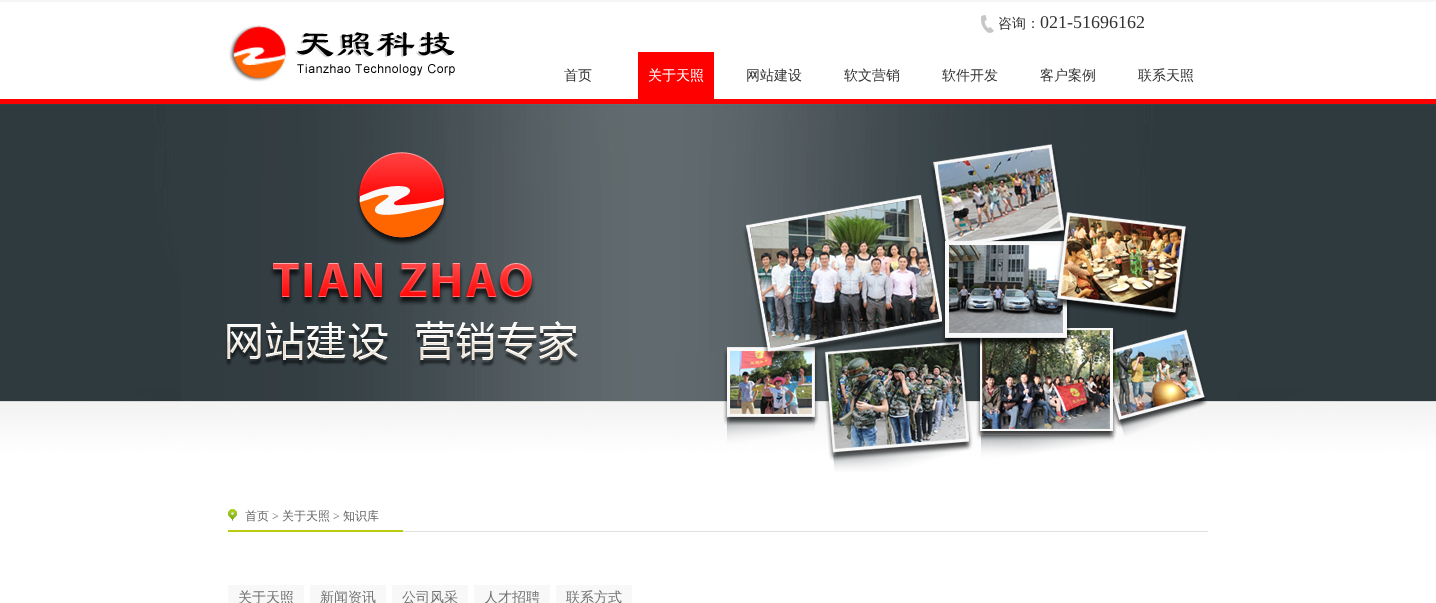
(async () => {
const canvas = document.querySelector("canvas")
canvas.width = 1436
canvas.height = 603
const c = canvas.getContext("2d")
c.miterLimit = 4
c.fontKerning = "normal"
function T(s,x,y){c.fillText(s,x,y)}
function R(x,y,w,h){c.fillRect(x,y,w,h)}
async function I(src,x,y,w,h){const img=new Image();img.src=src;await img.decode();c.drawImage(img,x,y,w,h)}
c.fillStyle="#fff"
R(0,0,1436,603)
c.fillStyle="#f7f6f6"
R(0,0,1436,2)
c.fillStyle="#f00"
R(0,99,1436,5)
await I("1.png",229,25,226,57)
await I("2.png",981,15,13,18)
c.font="500 14px WenQuanYi Zen Hei"
c.fillStyle="#333"
T("咨询：",998,28)
c.font="18px Liberation Serif"
T("021-51696162",1040,28)
c.font="500 14px WenQuanYi Zen Hei"
T("首页",564,80)
c.fillStyle="#f00"
R(638,52,76,47)
c.fillStyle="#fff"
T("关于天照",648,80)
c.fillStyle="#333"
T("网站建设",746,80)
T("软文营销",844,80)
T("软件开发",942,80)
T("客户案例",1040,80)
T("联系天照",1138,80)
await I("3.png",0,104,1436,368)
await I("4.png",228,509,980,23)
c.font="500 12px WenQuanYi Zen Hei"
c.fillStyle="#666"
T("首页",245,520)
c.font="12px Liberation Serif"
T(">",272,520)
c.font="500 12px WenQuanYi Zen Hei"
T("关于天照",282,520)
c.font="12px Liberation Serif"
T(">",333,520)
c.font="500 12px WenQuanYi Zen Hei"
T("知识库",343,520)
c.fillStyle="#f8f8f8"
R(228,585,76,18)
c.font="500 14px WenQuanYi Zen Hei"
c.fillStyle="#747373"
T("关于天照",238,602)
c.fillStyle="#f8f8f8"
R(310,585,76,18)
c.fillStyle="#747373"
T("新闻资讯",320,602)
c.fillStyle="#f8f8f8"
R(392,585,76,18)
c.fillStyle="#747373"
T("公司风采",402,602)
c.fillStyle="#f8f8f8"
R(474,585,76,18)
c.fillStyle="#747373"
T("人才招聘",484,602)
c.fillStyle="#f8f8f8"
R(556,585,76,18)
c.fillStyle="#747373"
T("联系方式",566,602)
})()
